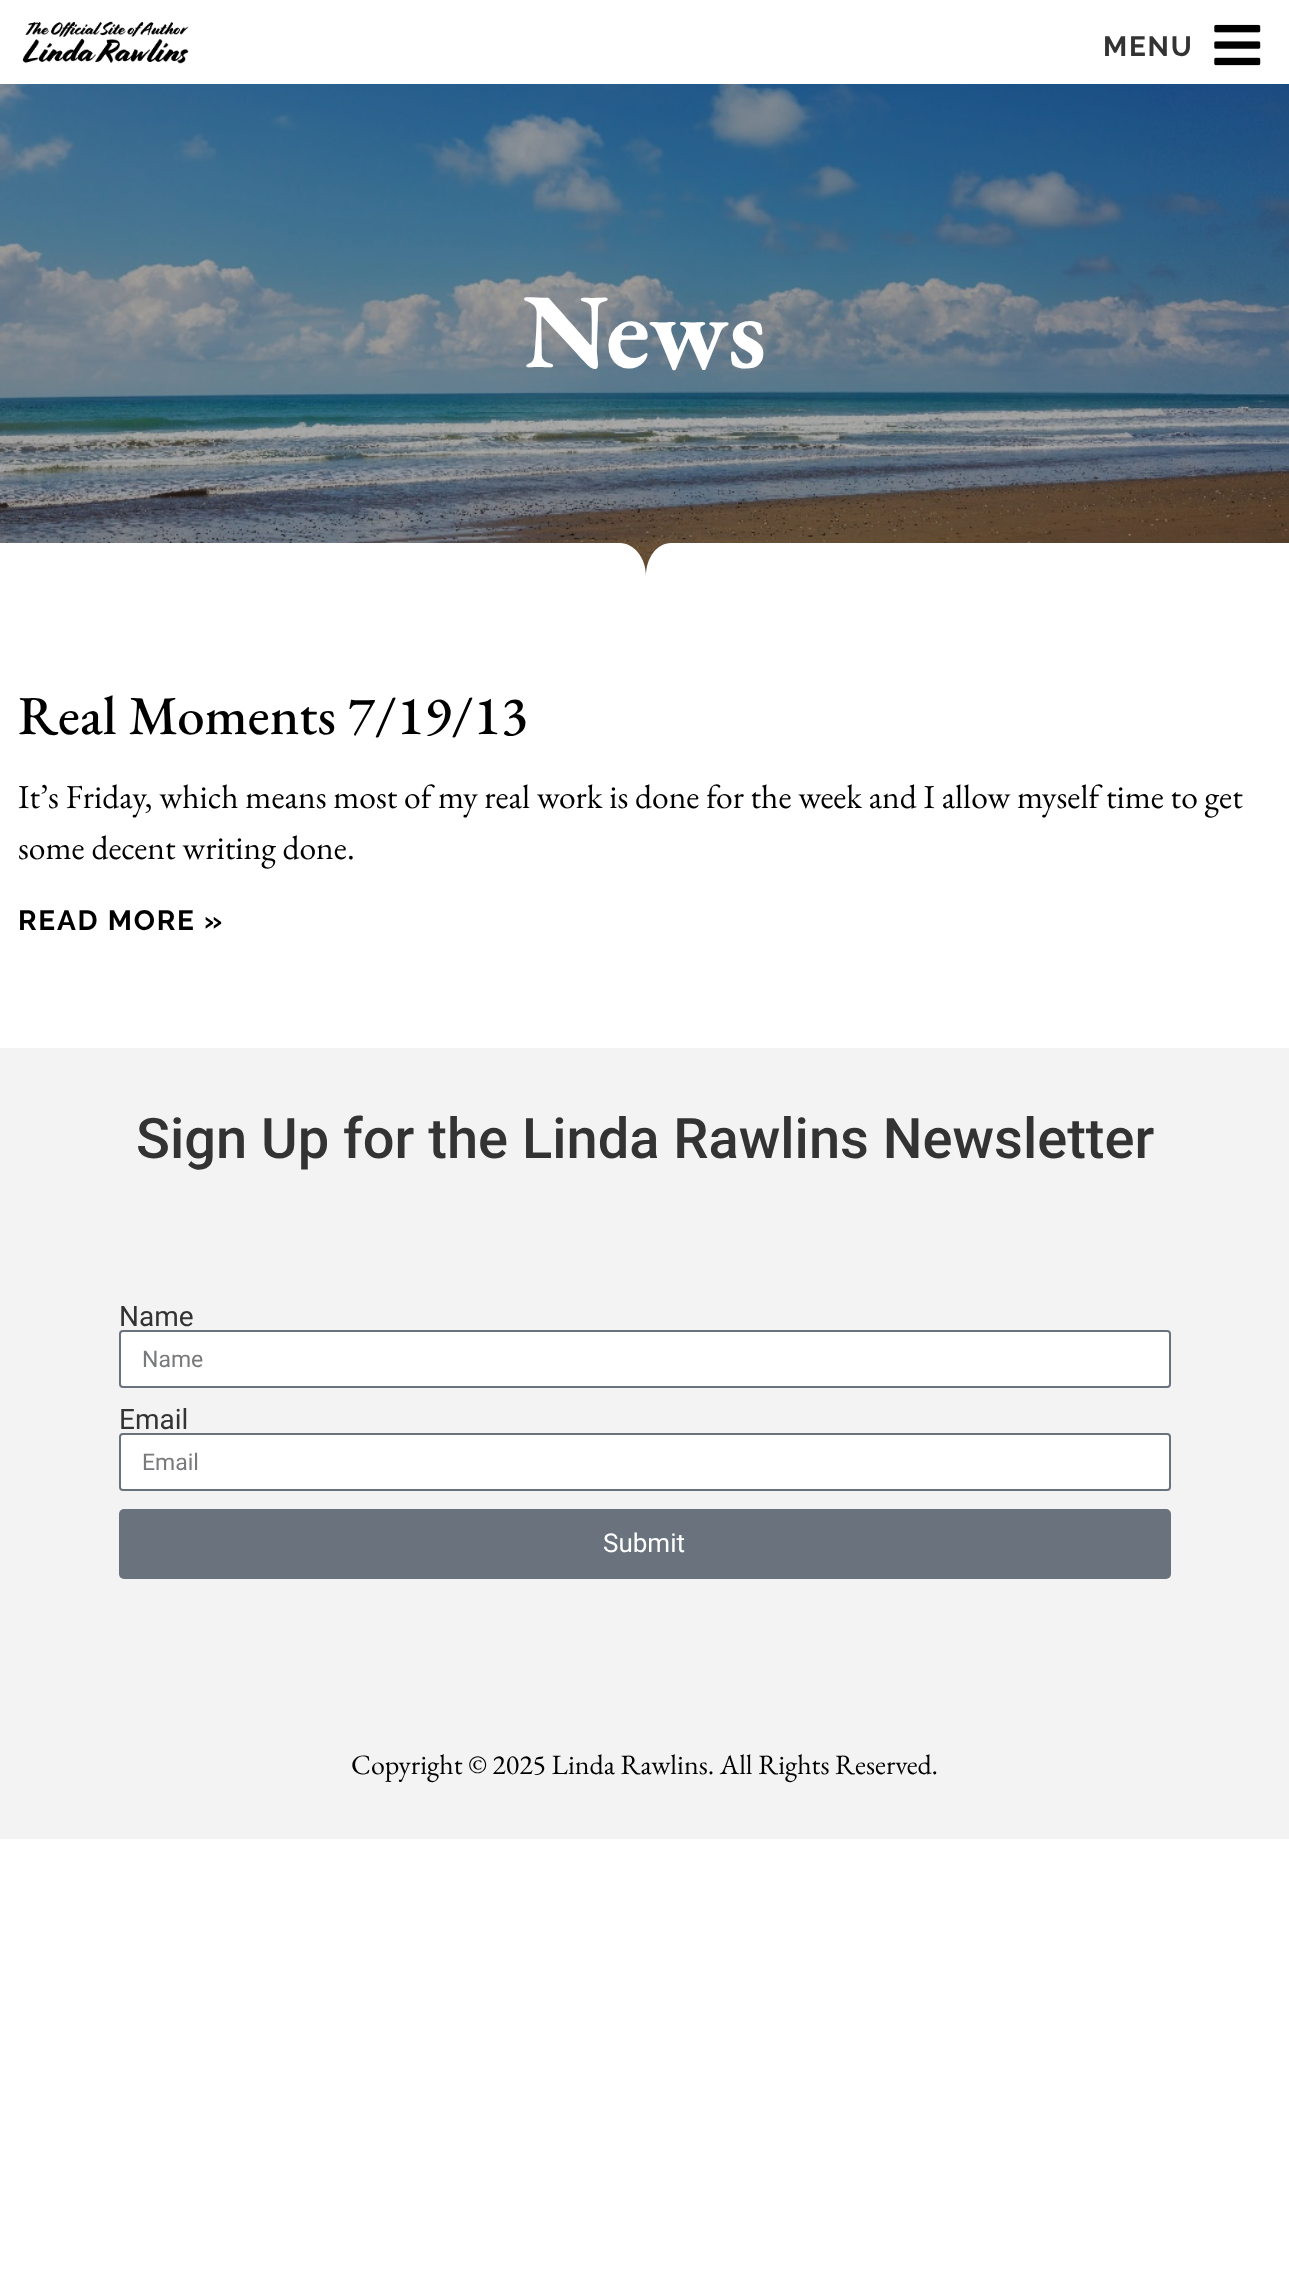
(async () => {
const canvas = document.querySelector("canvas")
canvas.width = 1289
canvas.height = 2287
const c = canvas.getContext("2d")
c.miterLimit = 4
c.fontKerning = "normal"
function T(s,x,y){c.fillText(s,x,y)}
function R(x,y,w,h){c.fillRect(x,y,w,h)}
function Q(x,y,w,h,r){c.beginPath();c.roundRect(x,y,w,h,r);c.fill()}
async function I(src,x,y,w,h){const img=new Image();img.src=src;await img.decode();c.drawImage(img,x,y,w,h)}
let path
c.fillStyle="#fff"
R(0,0,1289,2287)
await I("1.png",22,21,167,43)
c.letterSpacing="1.75px"
c.font="bold 28px Raleway"
c.fillStyle="#333"
T("MENU",1103,56)
await I("2.png",1214,24,47,42)
await I("3.png",0,84,1289,492)
c.letterSpacing="0px"
c.font="bold 106px EB Garamond"
c.fillStyle="#fff"
T("News",523,367)
c.save()
c.beginPath()
c.rect(0,543,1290,35)
c.clip()
path = new Path2D("M671 543c-14 0-25 15-25 33c0-18-12-33-26-33l-620-1v36h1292v-35z")
c.fill(path)
c.restore()
c.font="500 54.9px EB Garamond"
c.fillStyle="#000"
T("Real Moments 7/19/13",18,734)
c.font="33.6px EB Garamond"
T("It’s Friday, which means most of my real work is done for the week and I allow myself time to get",18,808)
T("some decent writing done.",18,859)
c.letterSpacing="1.75px"
c.font="bold 28px Raleway"
T("READ MORE »",18,930)
c.fillStyle="#f3f3f3"
R(0,1048,1289,791)
c.letterSpacing="0px"
c.font="500 56px Roboto"
c.fillStyle="#333"
T("Sign Up for the Linda Rawlins Newsletter",136,1158)
c.font="28px Roboto"
T("Name",119,1326)
c.fillStyle="#fff"
c.beginPath()
c.roundRect(120,1331,1050,56,3)
c.fill()
c.strokeStyle="#69727d"
c.lineWidth=2
c.stroke()
c.font="23px Roboto"
c.fillStyle="#797a7c"
T("Name",142,1367)
c.font="28px Roboto"
c.fillStyle="#333"
T("Email",119,1429)
c.fillStyle="#fff"
c.beginPath()
c.roundRect(120,1434,1050,56,3)
c.fill()
c.stroke()
c.font="23px Roboto"
c.fillStyle="#797a7c"
T("Email",142,1470)
c.fillStyle="#69727d"
Q(119,1509,1052,70,5)
c.font="26px Roboto"
c.fillStyle="#fff"
T("Submit",603,1552)
c.font="28px EB Garamond"
c.fillStyle="#000"
T("Copyright © 2025 Linda Rawlins. All Rights Reserved.",351,1774)
})()
